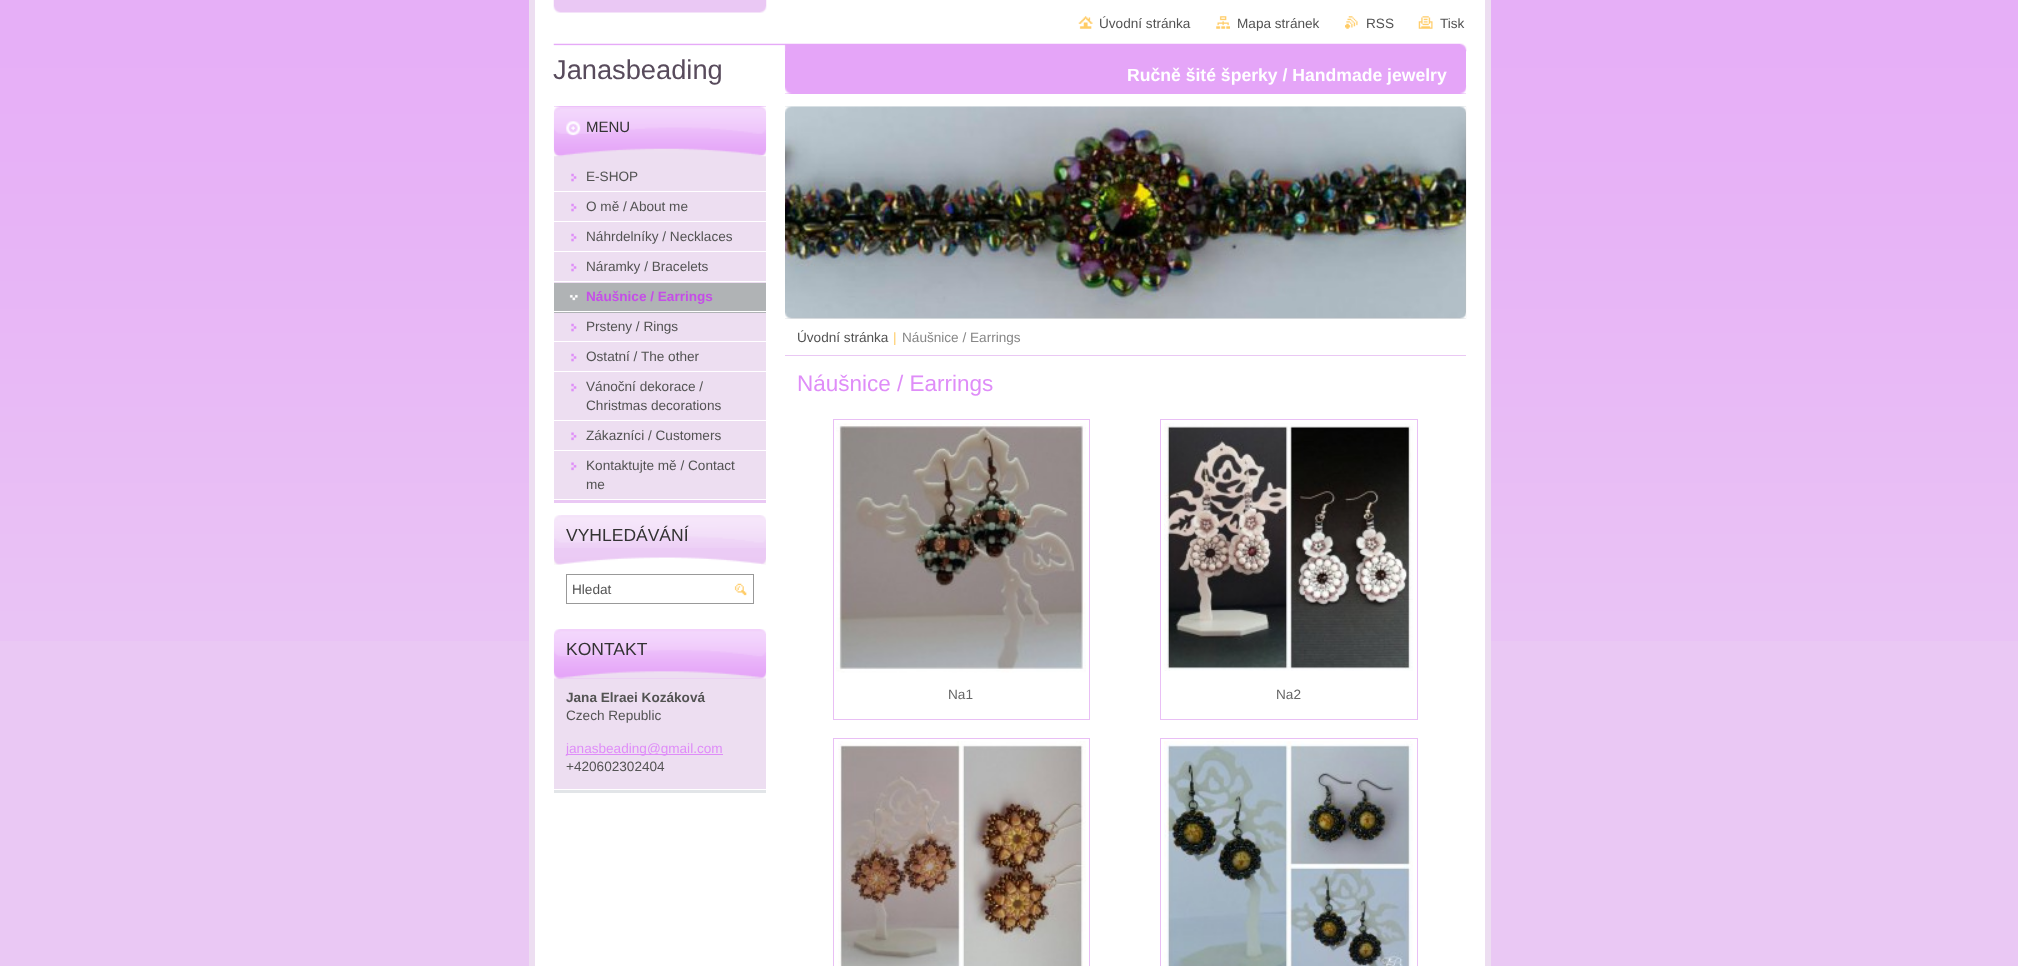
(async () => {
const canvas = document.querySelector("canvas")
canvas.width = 2018
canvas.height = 966
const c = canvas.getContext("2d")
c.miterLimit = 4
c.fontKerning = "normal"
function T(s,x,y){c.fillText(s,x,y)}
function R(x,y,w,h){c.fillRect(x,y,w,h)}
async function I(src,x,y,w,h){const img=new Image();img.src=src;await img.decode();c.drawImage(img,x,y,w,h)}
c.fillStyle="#eac8f4"
R(0,0,2018,966)
await I("1.png",0,0,2018,641)
c.fillStyle="#fff"
R(535,0,950,966)
await I("2.png",553,0,214,13)
c.fillStyle="#eddef1"
R(1485,0,6,966)
R(529,0,6,966)
await I("3.png",1078,16,15,13)
c.font="13.6px Liberation Sans"
c.fillStyle="#535353"
T("Úvodní stránka",1099,28)
await I("4.png",1216,16,14,13)
T("Mapa stránek",1237,28)
await I("5.png",1345,16,13,13)
T("RSS",1366,28)
await I("6.png",1418,16,15,13)
T("Tisk",1440,28)
await I("7.png",553,43,914,9)
c.font="27.25px Liberation Sans"
c.fillStyle="#584b5c"
T("Janasbeading",553,79)
c.fillStyle="#e5a5f8"
R(785,51,681,43)
await I("8.png",785,85,682,9)
c.font="bold 17.6px Liberation Sans"
c.fillStyle="#fff"
T("Ručně šité šperky / Handmade jewelry",1127,81)
c.fillStyle="#eac8f4"
R(554,500,212,3)
c.fillStyle="#eddef1"
R(554,156,212,343)
c.fillStyle="#e6aaf8"
R(554,106,212,43)
await I("9.png",553,106,214,42)
await I("10.png",553,148,214,9)
c.font="15px Liberation Sans"
c.fillStyle="#333"
T("MENU",586,132)
await I("11.png",571,173,6,9)
c.fillStyle="#fff"
R(554,191,212,1)
c.font="13.6px Liberation Sans"
c.fillStyle="#535353"
T("E-SHOP",586,181)
await I("11.png",571,203,6,9)
c.fillStyle="#fff"
R(554,221,212,1)
c.fillStyle="#535353"
T("O mě / About me",586,211)
await I("11.png",571,233,6,9)
c.fillStyle="#fff"
R(554,251,212,1)
c.fillStyle="#535353"
T("Náhrdelníky / Necklaces",586,241)
await I("11.png",571,263,6,9)
c.fillStyle="#fff"
R(554,281,212,1)
c.fillStyle="#535353"
T("Náramky / Bracelets",586,271)
c.fillStyle="#b0b3b5"
R(554,283,212,30)
await I("12.png",569,294,9,7)
c.fillStyle="#fff"
R(554,311,212,1)
c.font="bold 13.6px Liberation Sans"
c.fillStyle="#c54ee8"
T("Náušnice / Earrings",586,301)
await I("11.png",571,323,6,9)
c.fillStyle="#fff"
R(554,341,212,1)
c.font="13.6px Liberation Sans"
c.fillStyle="#535353"
T("Prsteny / Rings",586,331)
await I("11.png",571,353,6,9)
c.fillStyle="#fff"
R(554,371,212,1)
c.fillStyle="#535353"
T("Ostatní / The other",586,361)
await I("11.png",571,383,6,9)
c.fillStyle="#fff"
R(554,420,212,1)
c.fillStyle="#535353"
T("Vánoční dekorace /",586,391)
T("Christmas decorations",586,410)
await I("13.png",571,432,6,9)
c.fillStyle="#fff"
R(554,450,212,1)
c.fillStyle="#535353"
T("Zákazníci / Customers",586,440)
await I("13.png",571,462,6,9)
T("Kontaktujte mě / Contact",586,470)
T("me",586,489)
c.fillStyle="#ebcbf5"
R(554,548,212,10)
await I("14.png",554,515,212,33)
await I("15.png",554,557,212,8)
c.font="17.5px Liberation Sans"
c.fillStyle="#333"
T("VYHLEDÁVÁNÍ",566,541)
c.strokeStyle="#999"
c.strokeRect(566.5,574.5,187,29)
c.font="13.6px Liberation Sans"
c.fillStyle="#535353"
T("Hledat",572,594)
await I("16.png",734,583,13,13)
c.fillStyle="#e2e5e8"
R(554,790,212,3)
c.fillStyle="#eddef1"
R(554,679,212,110)
c.fillStyle="#e6aaf8"
R(554,671,212,8)
await I("17.png",553,629,214,42)
await I("18.png",553,671,214,8)
c.font="17.5px Liberation Sans"
c.fillStyle="#333"
T("KONTAKT",566,655)
c.font="bold 13.6px Liberation Sans"
c.fillStyle="#535353"
T("Jana Elraei Kozáková",566,702)
c.font="13.6px Liberation Sans"
T("Czech Republic",566,720)
c.fillStyle="#df8df8"
R(566,754,120,1)
T("janasbeading@gmail.com",566,753)
R(686,754,37,1)
c.fillStyle="#535353"
T("+420602302404",566,771)
await I("19.png",785,106,682,213)
await I("20.png",785,106,681,213)
c.fillStyle="#eac8f4"
R(785,355,681,1)
c.fillStyle="#535353"
T("Úvodní stránka",797,342)
c.fillStyle="#fc6"
T("|",893,342)
c.fillStyle="#878787"
T("Náušnice / Earrings",902,342)
c.font="22.5px Liberation Sans"
c.fillStyle="#df8df8"
T("Náušnice / Earrings",797,391)
c.strokeStyle="#e9bff5"
c.strokeRect(833.5,419.5,256,300)
await I("21.png",836,423,250,250)
c.font="13.6px Liberation Sans"
c.fillStyle="#666"
T("Na1",948,699)
c.strokeRect(1160.5,419.5,257,300)
await I("22.png",1164,423,249,248)
T("Na2",1276,699)
c.strokeRect(833.5,738.5,256,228)
await I("23.png",838,741,248,225)
c.strokeRect(1160.5,738.5,257,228)
await I("24.png",1164,741,249,225)
})()
